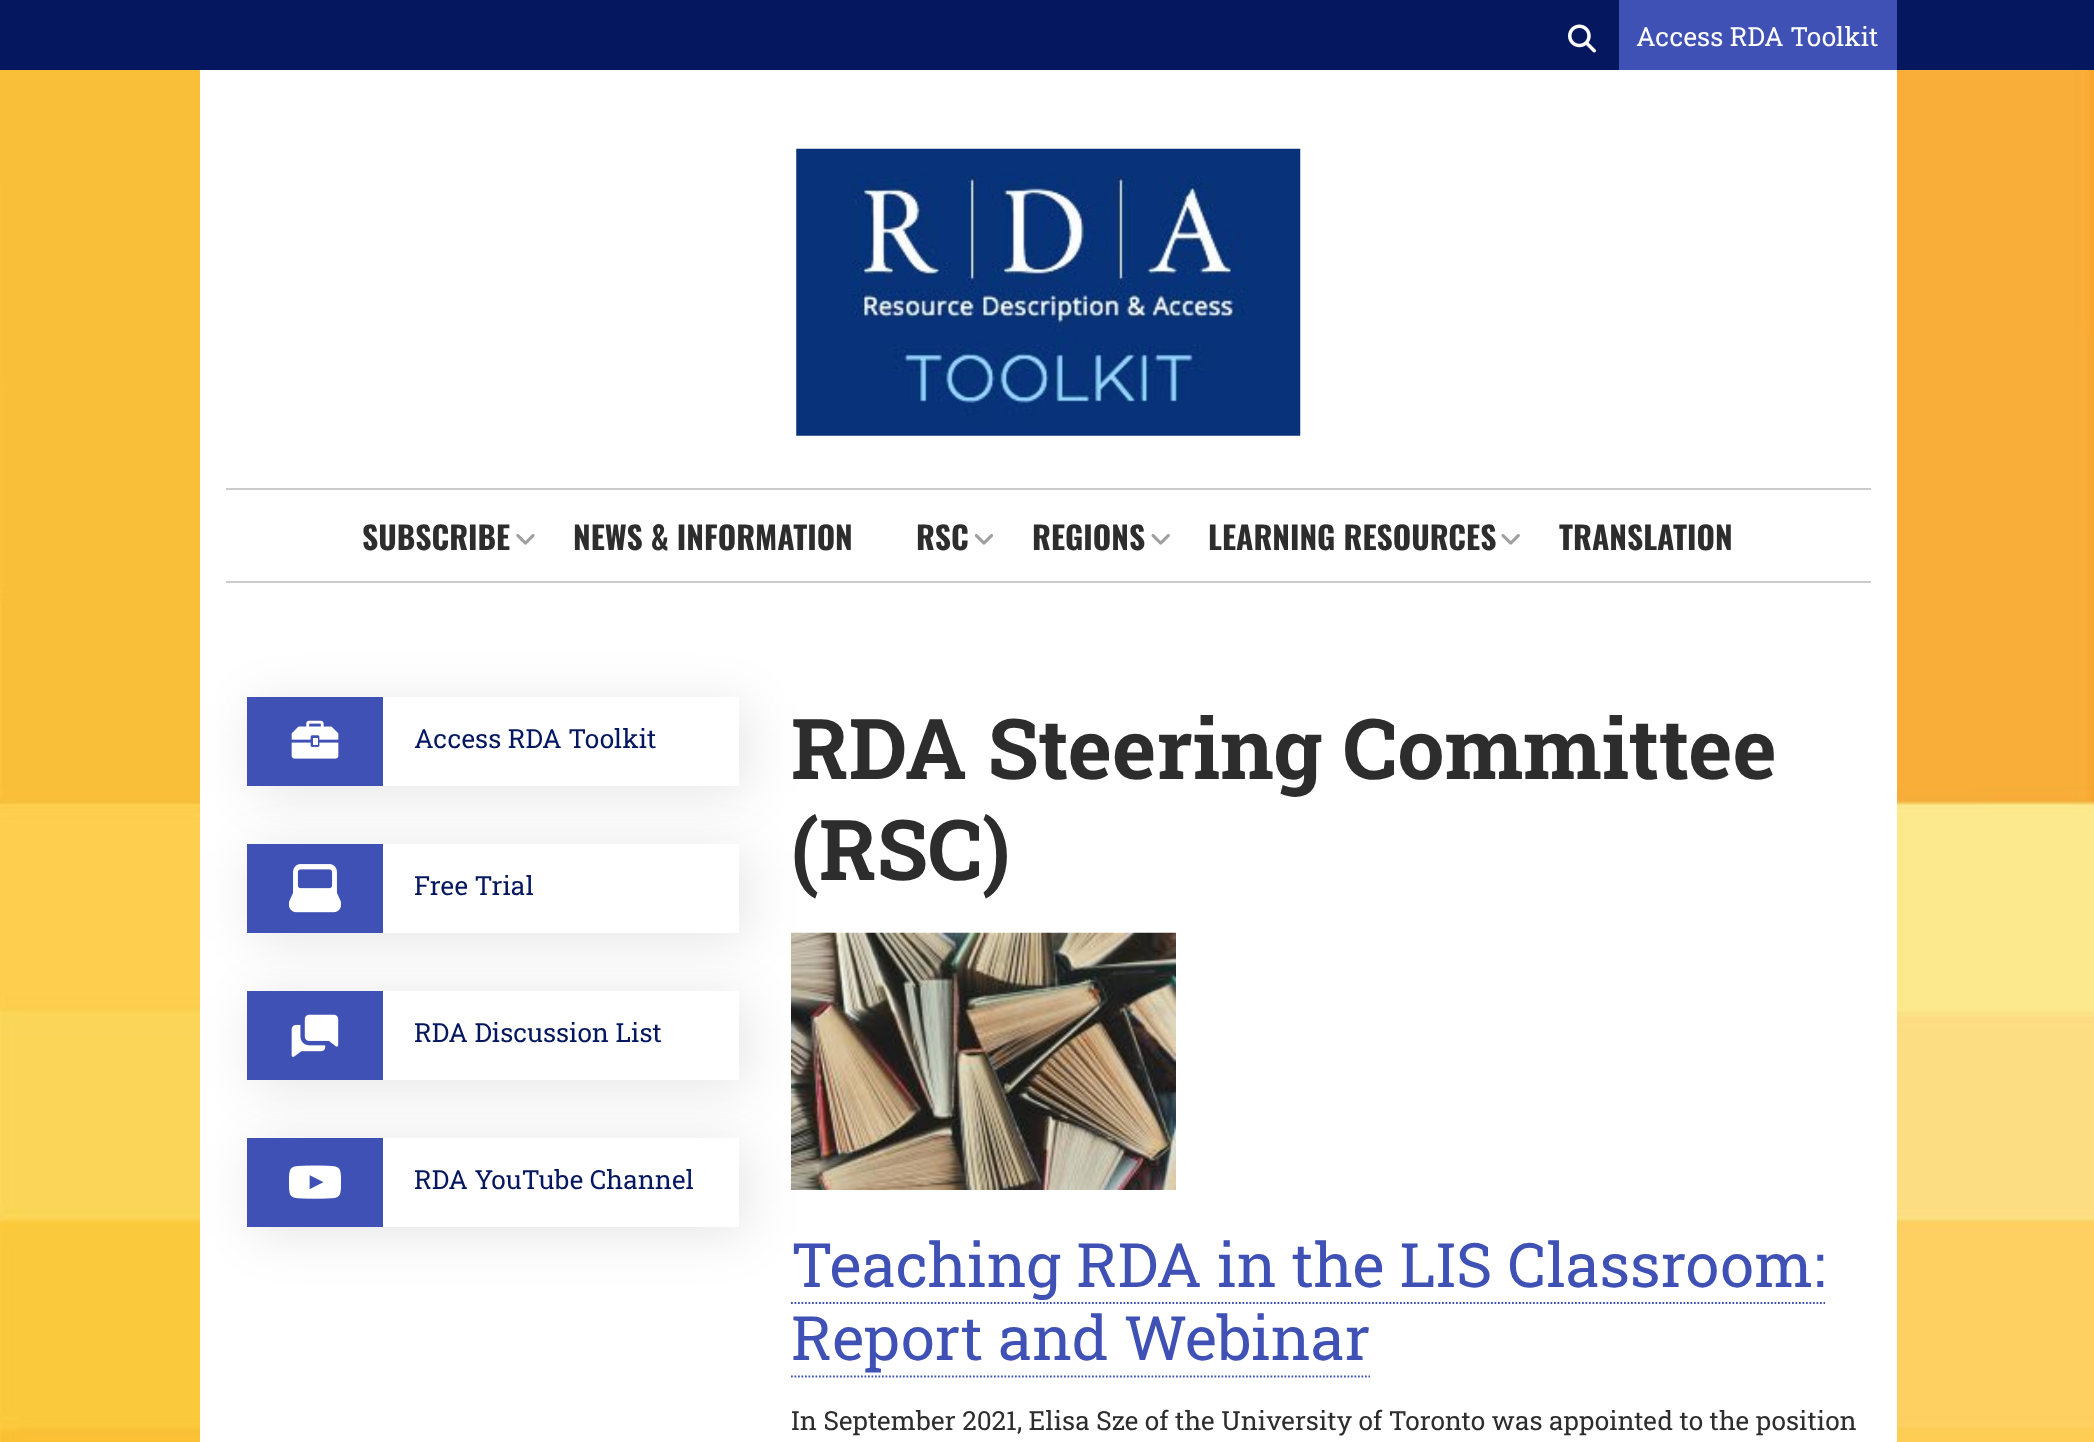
(async () => {
const canvas = document.querySelector("canvas")
canvas.width = 2094
canvas.height = 1442
const c = canvas.getContext("2d")
c.miterLimit = 4
c.fontKerning = "normal"
function T(s,x,y){c.fillText(s,x,y)}
function R(x,y,w,h){c.fillRect(x,y,w,h)}
async function I(src,x,y,w,h){const img=new Image();img.src=src;await img.decode();c.drawImage(img,x,y,w,h)}
let path
c.fillStyle="#fff"
R(0,0,2094,1442)
await I("1.png",0,70,2094,1372)
c.fillStyle="#05175f"
R(0,0,2094,70)
await I("2.png",1568,24,28,29)
c.fillStyle="#3f51b5"
R(1619,0,278,70)
c.font="26.25px Roboto Slab"
c.fillStyle="#fff"
T("Access RDA Toolkit",1636,46)
R(200,70,1697,513)
await I("3.png",796,148,505,288)
c.fillStyle="#cbcbcb"
R(226,488,1645,2)
R(226,581,1645,2)
c.font="bold 31.5px Oswald"
c.fillStyle="#2d2d2d"
T("SUBSCRIBE",362,550)
await I("4.png",516,534,19,11)
T("NEWS & INFORMATION",573,550)
T("RSC",916,550)
await I("5.png",974,534,20,11)
T("REGIONS",1032,550)
await I("6.png",1151,534,19,11)
T("LEARNING RESOURCES",1208,550)
await I("6.png",1501,534,19,11)
T("TRANSLATION",1559,550)
c.fillStyle="#fff"
R(200,583,1697,859)
c.fillStyle="#0000001a"
c.filter="blur(26px)"
c.beginPath()
c.rect(254,704,492,89)
c.fill()
c.filter="none"
c.fillStyle="#fff"
R(383,697,356,89)
c.fillStyle="#3f51b5"
R(247,697,136,89)
await I("7.png",291,720,48,39)
c.font="26.25px Roboto Slab"
c.fillStyle="#05175f"
T("Access RDA Toolkit",414,748)
await I("11.png",791,932,385,258)
c.fillStyle="#0000001a"
c.filter="blur(26px)"
c.beginPath()
c.rect(254,851,492,89)
c.fill()
c.filter="none"
c.fillStyle="#fff"
R(383,844,356,89)
c.fillStyle="#3f51b5"
R(247,844,136,89)
await I("8.png",289,864,52,49)
c.fillStyle="#05175f"
T("Free Trial",414,895)
c.fillStyle="#0000001a"
c.filter="blur(26px)"
c.beginPath()
c.rect(254,998,492,89)
c.fill()
c.filter="none"
c.fillStyle="#fff"
R(383,991,356,89)
c.fillStyle="#3f51b5"
R(247,991,136,89)
await I("9.png",291,1014,48,43)
c.fillStyle="#05175f"
T("RDA Discussion List",414,1042)
path = new Path2D("M791 1303h1034")
c.strokeStyle="#3f51b5"
c.lineWidth=1.8
c.setLineDash([1.75,1.75])
c.stroke(path)
c.fillStyle="#0000001a"
c.filter="blur(26px)"
c.beginPath()
c.rect(254,1145,492,89)
c.fill()
c.filter="none"
c.fillStyle="#fff"
R(383,1138,356,89)
c.fillStyle="#3f51b5"
R(247,1138,136,89)
await I("10.png",289,1165,52,34)
c.fillStyle="#05175f"
T("RDA YouTube Channel",414,1189)
c.font="bold 84px Roboto Slab"
c.fillStyle="#2d2d2d"
T("RDA Steering Committee",791,779)
T("(RSC)",791,880)
c.font="61.25px Roboto Slab"
c.fillStyle="#3f51b5"
T("Teaching RDA in the LIS Classroom:",791,1287)
T("Report and Webinar",791,1360)
path = new Path2D("M791 1376.5h579")
c.stroke(path)
c.font="26.25px Roboto Slab"
c.fillStyle="#2d2d2d"
T("In September 2021, Elisa Sze of the University of Toronto was appointed to the position",791,1430)
})()
